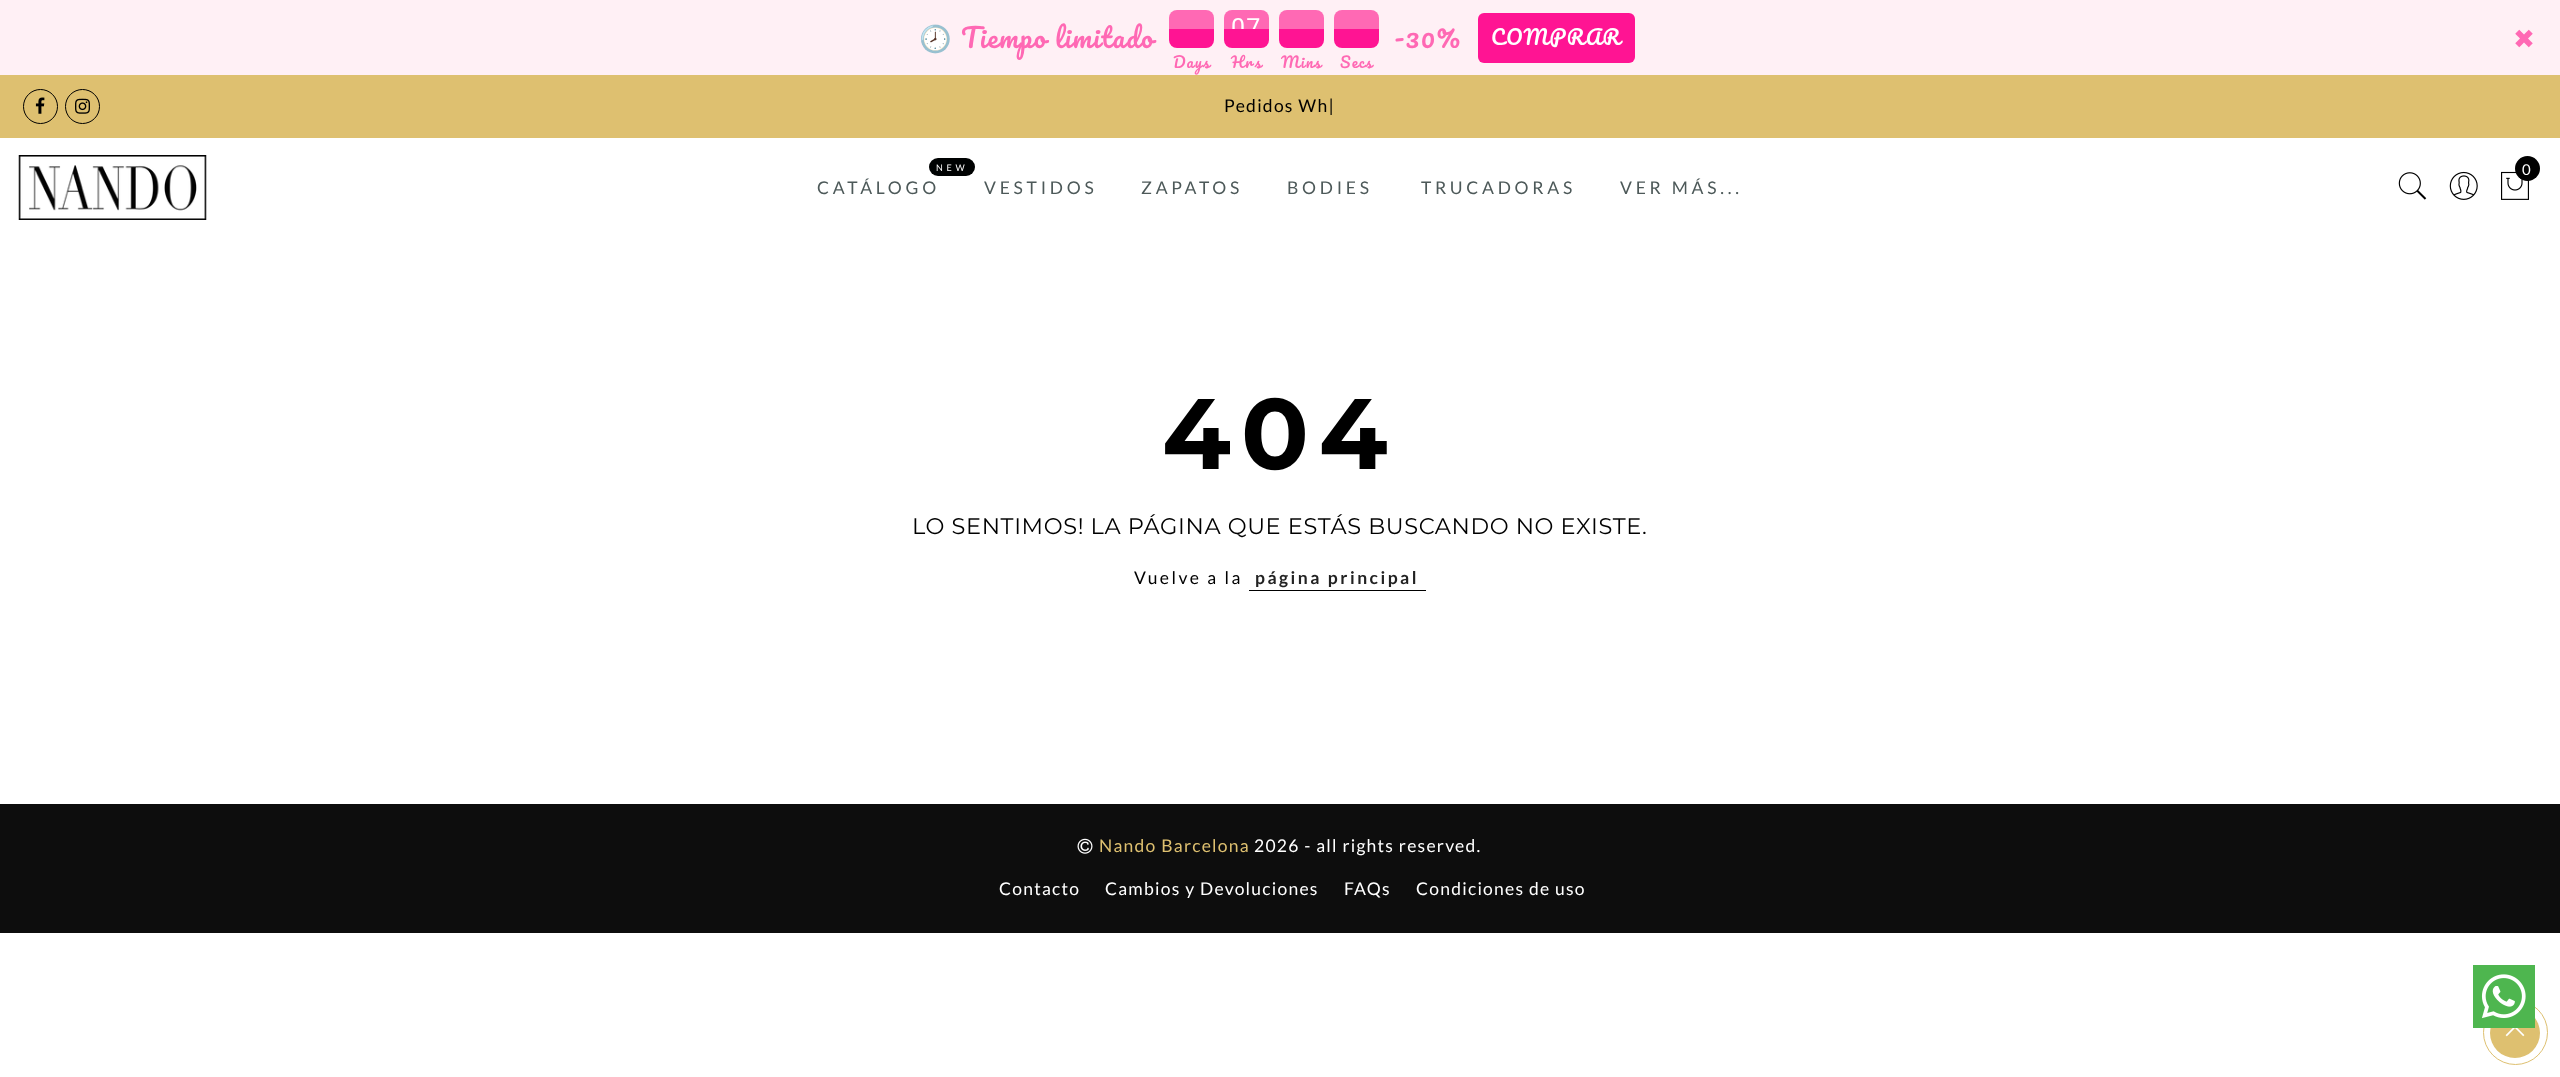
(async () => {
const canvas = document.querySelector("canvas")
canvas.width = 2560
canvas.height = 1077
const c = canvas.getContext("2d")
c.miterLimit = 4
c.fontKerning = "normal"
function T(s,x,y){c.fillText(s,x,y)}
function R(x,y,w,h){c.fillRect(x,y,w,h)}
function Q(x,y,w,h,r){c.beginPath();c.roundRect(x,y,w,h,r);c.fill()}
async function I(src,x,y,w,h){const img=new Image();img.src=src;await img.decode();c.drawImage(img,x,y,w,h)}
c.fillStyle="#fff"
R(0,0,2560,1077)
c.fillStyle="#fff0f5"
R(0,0,2560,75)
c.letterSpacing="1.25px"
c.font="26.25px Noto Color Emoji"
c.fillStyle="#ff69b4"
T("🕗",919,48)
c.font="26.25px Pacifico"
T("Tiempo limitado",961,48)
c.beginPath()
c.roundRect(1169,10,45,19,[8,8,0,0])
c.fill()
c.fillStyle="#ff1493"
c.beginPath()
c.roundRect(1169,29,45,19,[0,0,8,8])
c.fill()
c.font="15px Pacifico"
c.fillStyle="#ff69b4"
T("Days",1173,68)
c.beginPath()
c.roundRect(1224,10,45,19,[8,8,0,0])
c.fill()
c.font="25px Roboto"
c.fillStyle="#fff"
T("07",1231,36)
c.fillStyle="#ff1493"
c.beginPath()
c.roundRect(1224,29,45,19,[0,0,8,8])
c.fill()
c.font="15px Pacifico"
c.fillStyle="#ff69b4"
T("Hrs",1231,68)
c.beginPath()
c.roundRect(1279,10,45,19,[8,8,0,0])
c.fill()
c.fillStyle="#ff1493"
c.beginPath()
c.roundRect(1279,29,45,19,[0,0,8,8])
c.fill()
c.fillStyle="#ff69b4"
T("Mins",1281,68)
c.beginPath()
c.roundRect(1334,10,45,19,[8,8,0,0])
c.fill()
c.fillStyle="#ff1493"
c.beginPath()
c.roundRect(1334,29,45,19,[0,0,8,8])
c.fill()
c.fillStyle="#ff69b4"
T("Secs",1340,68)
c.font="26.25px Pacifico"
T("-30%",1394,48)
c.fillStyle="#ff1493"
Q(1478,13,157,50,6)
c.font="20px Pacifico"
c.fillStyle="#fff"
T("COMPRAR",1491,45)
c.font="26.25px DejaVu Sans"
c.fillStyle="#ff69b4"
T("✖",2513,48)
c.fillStyle="#dec070"
R(0,75,2560,63)
c.beginPath()
c.arc(40.5,106.5,17,0,7)
c.strokeStyle="#000"
c.stroke()
await I("1.png",35,97,10,17)
c.beginPath()
c.arc(82.5,106.5,17,0,7)
c.stroke()
await I("2.png",75,98,15,16)
c.font="17.5px Lato"
c.fillStyle="#000"
T("Pedidos Wh|",1224,112)
await I("3.png",18,155,189,65)
c.fillStyle="#000202"
Q(929,158,46,18,9)
c.letterSpacing="3.75px"
c.font="9px Lato"
c.fillStyle="#fff"
T("NEW",936,171)
c.font="17.5px Lato"
c.fillStyle="#4d5959"
T("CATÁLOGO",817,194)
T("VESTIDOS",984,194)
T("ZAPATOS",1141,194)
T("BODIES",1287,194)
T("TRUCADORAS",1421,194)
T("VER MÁS...",1620,194)
await I("4.png",2398,172,29,28)
await I("5.png",2449,171,29,29)
await I("6.png",2501,171,28,29)
c.fillStyle="#000"
c.beginPath()
c.arc(2527.5,168.5,12.5,0,7)
c.fill()
c.letterSpacing="1.25px"
c.font="15px Lato"
c.fillStyle="#fff"
T("0",2522,175)
c.letterSpacing="10px"
c.font="bold 100px Montserrat"
c.fillStyle="#000"
T("404",1162,469)
c.letterSpacing="0.62px"
c.font="22.5px Montserrat"
T("LO SENTIMOS! LA PÁGINA QUE ESTÁS BUSCANDO NO EXISTE.",912,534)
c.letterSpacing="2.5px"
c.font="17.5px Lato"
T("Vuelve a la",1134,584)
c.font="bold 17.5px Lato"
c.fillStyle="#222"
T("página principal",1255,584)
c.fillStyle="#000"
R(1249,590,177,1)
c.fillStyle="#0d0d0d"
R(0,804,2560,129)
await I("7.png",1077,838,16,16)
c.letterSpacing="1.25px"
c.font="17.5px Lato"
c.fillStyle="#dec070"
T("Nando Barcelona",1099,852)
c.fillStyle="#fff"
T("2026 - all rights reserved.",1254,852)
T("Contacto",999,895)
T("Cambios y Devoluciones",1105,895)
T("FAQs",1344,895)
T("Condiciones de uso",1416,895)
c.beginPath()
c.arc(2515.5,1032.5,32,0,7)
c.strokeStyle="#dec070"
c.stroke()
c.fillStyle="#dec070"
c.beginPath()
c.arc(2515,1033,25,0,7)
c.fill()
await I("8.png",2473,965,62,63)
await I("9.png",2505,1028,20,9)
})()
